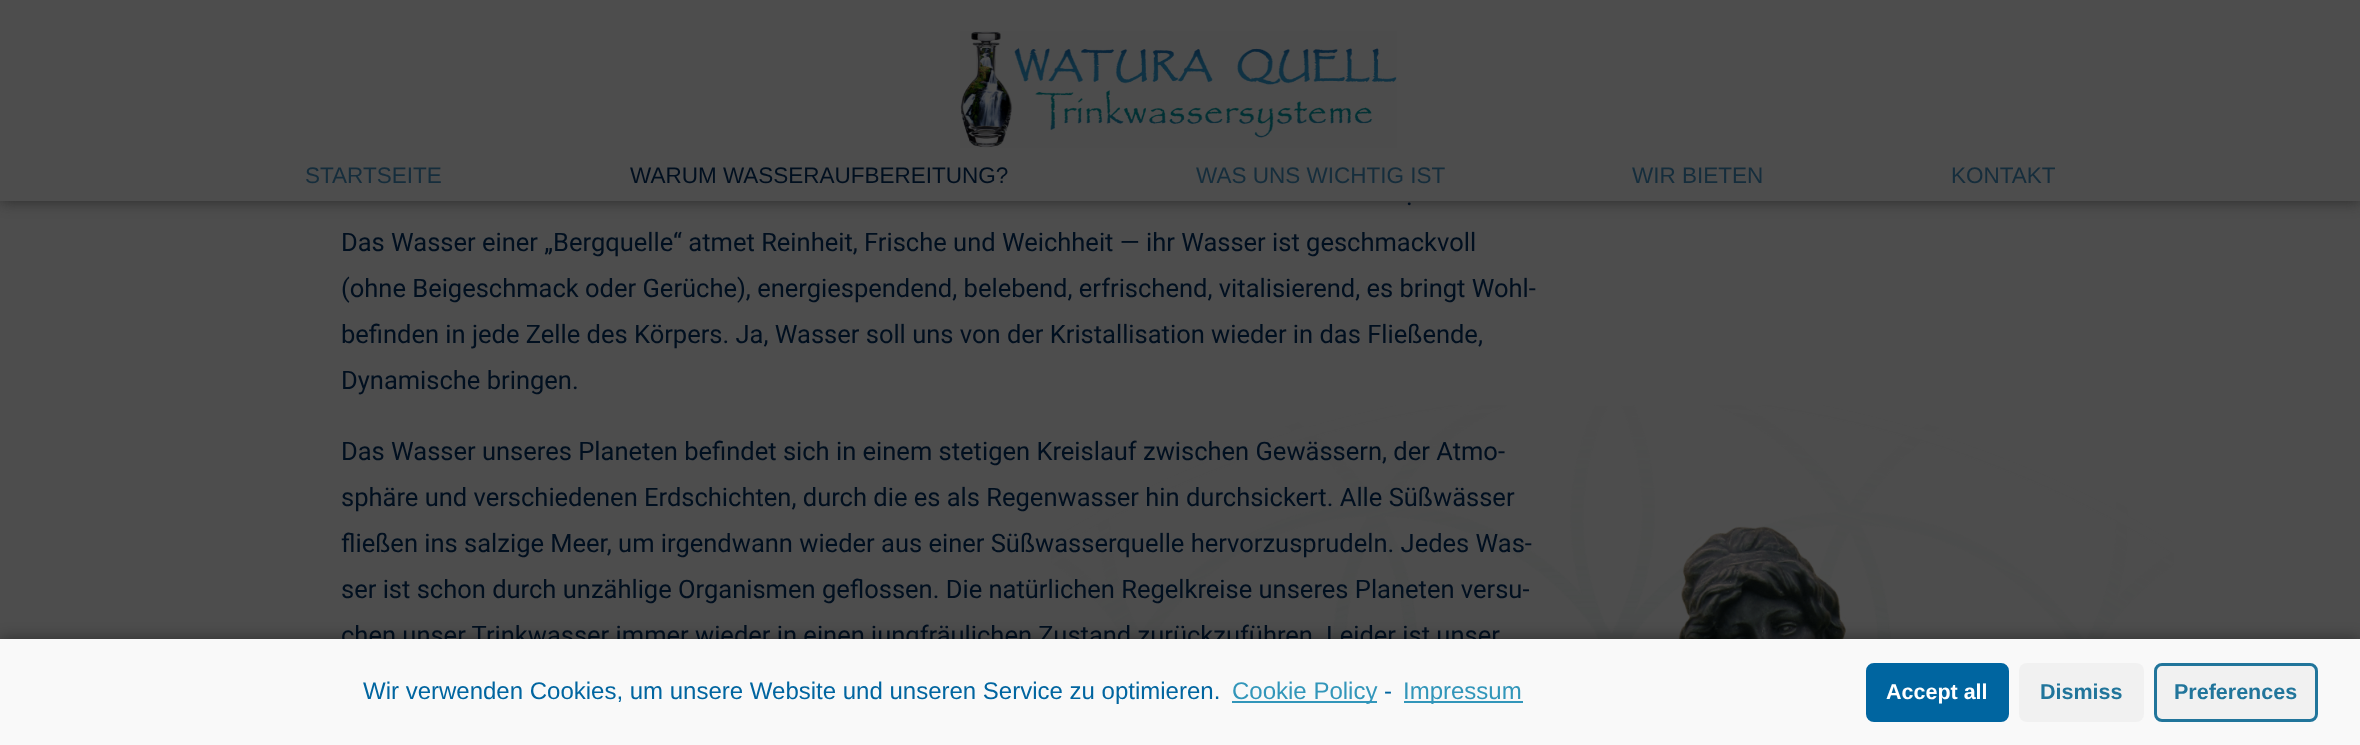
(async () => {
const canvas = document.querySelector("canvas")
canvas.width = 2360
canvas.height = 745
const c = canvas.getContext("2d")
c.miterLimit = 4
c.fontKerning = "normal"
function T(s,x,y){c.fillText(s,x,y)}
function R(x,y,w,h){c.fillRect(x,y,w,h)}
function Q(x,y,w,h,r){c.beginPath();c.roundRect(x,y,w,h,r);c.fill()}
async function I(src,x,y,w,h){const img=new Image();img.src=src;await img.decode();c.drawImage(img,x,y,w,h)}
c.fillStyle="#4d4d4d"
R(0,0,2360,745)
c.fillStyle="#232323d4"
c.filter="blur(7.5px)"
c.beginPath()
c.rect(0,0,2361,201)
c.fill()
c.filter="none"
c.fillStyle="#4d4d4d"
R(0,0,2360,201)
await I("1.png",960,31,437,117)
c.font="22.5px Liberation Sans"
c.fillStyle="#152d3c"
T("STARTSEITE",305,183)
c.fillStyle="#000f1f"
T("WARUM WASSERAUFBEREITUNG?",630,183)
c.fillStyle="#152d3c"
T("WAS UNS WICHTIG IST",1196,183)
T("WIR BIETEN",1632,183)
T("KONTAKT",1951,183)
await I("2.png",1051,405,1123,234)
c.font="25.5px Roboto"
c.fillStyle="#000f1f"
T(".",1406,205)
T("Das Wasser einer „Bergquelle“ atmet Reinheit, Frische und Weichheit — ihr Wasser ist geschmackvoll",341,251)
T("(ohne Beigeschmack oder Gerüche), energiespendend, belebend, erfrischend, vitalisierend, es bringt Wohl-",341,297)
T("befinden in jede Zelle des Körpers. Ja, Wasser soll uns von der Kristallisation wieder in das Fließende,",341,343)
T("Dynamische bringen.",341,389)
T("Das Wasser unseres Planeten befindet sich in einem stetigen Kreislauf zwischen Gewässern, der Atmo-",341,460)
T("sphäre und verschiedenen Erdschichten, durch die es als Regenwasser hin durchsickert. Alle Süßwässer",341,506)
T("fließen ins salzige Meer, um irgendwann wieder aus einer Süßwasserquelle hervorzusprudeln. Jedes Was-",341,552)
T("ser ist schon durch unzählige Organismen geflossen. Die natürlichen Regelkreise unseres Planeten versu-",341,598)
T("chen unser Trinkwasser immer wieder in einen jungfräulichen Zustand zurückzuführen",341,644)
T("Leider ist unser",1326,644)
await I("3.png",1678,526,168,113)
c.fillStyle="#00000066"
c.filter="blur(7.5px)"
c.beginPath()
c.rect(0,639,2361,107)
c.fill()
c.filter="none"
c.fillStyle="#f9f9f9"
R(0,639,2360,106)
c.font="24px Liberation Sans"
c.fillStyle="#0065a0"
T("Wir verwenden Cookies, um unsere Website und unseren Service zu optimieren.",363,699)
c.fillStyle="#3296ba"
R(1232,701,145,2)
T("Cookie Policy",1232,699)
c.fillStyle="#0065a0"
T("-",1384,699)
c.fillStyle="#3296ba"
R(1404,701,119,2)
T("Impressum",1403,699)
c.fillStyle="#0065a0"
c.beginPath()
c.roundRect(1867.5,664.5,140,56,6.5)
c.fill()
c.strokeStyle="#0065a0"
c.lineWidth=3
c.stroke()
c.font="bold 21.5px Liberation Sans"
c.fillStyle="#fff"
T("Accept all",1886,699)
c.fillStyle="#f1f1f1"
Q(2019,663,125,59,8)
c.fillStyle="#21759b"
T("Dismiss",2040,699)
c.fillStyle="#f1f1f1"
c.beginPath()
c.roundRect(2155.5,664.5,161,56,6.5)
c.fill()
c.strokeStyle="#21759b"
c.stroke()
c.fillStyle="#21759b"
T("Preferences",2174,699)
})()
